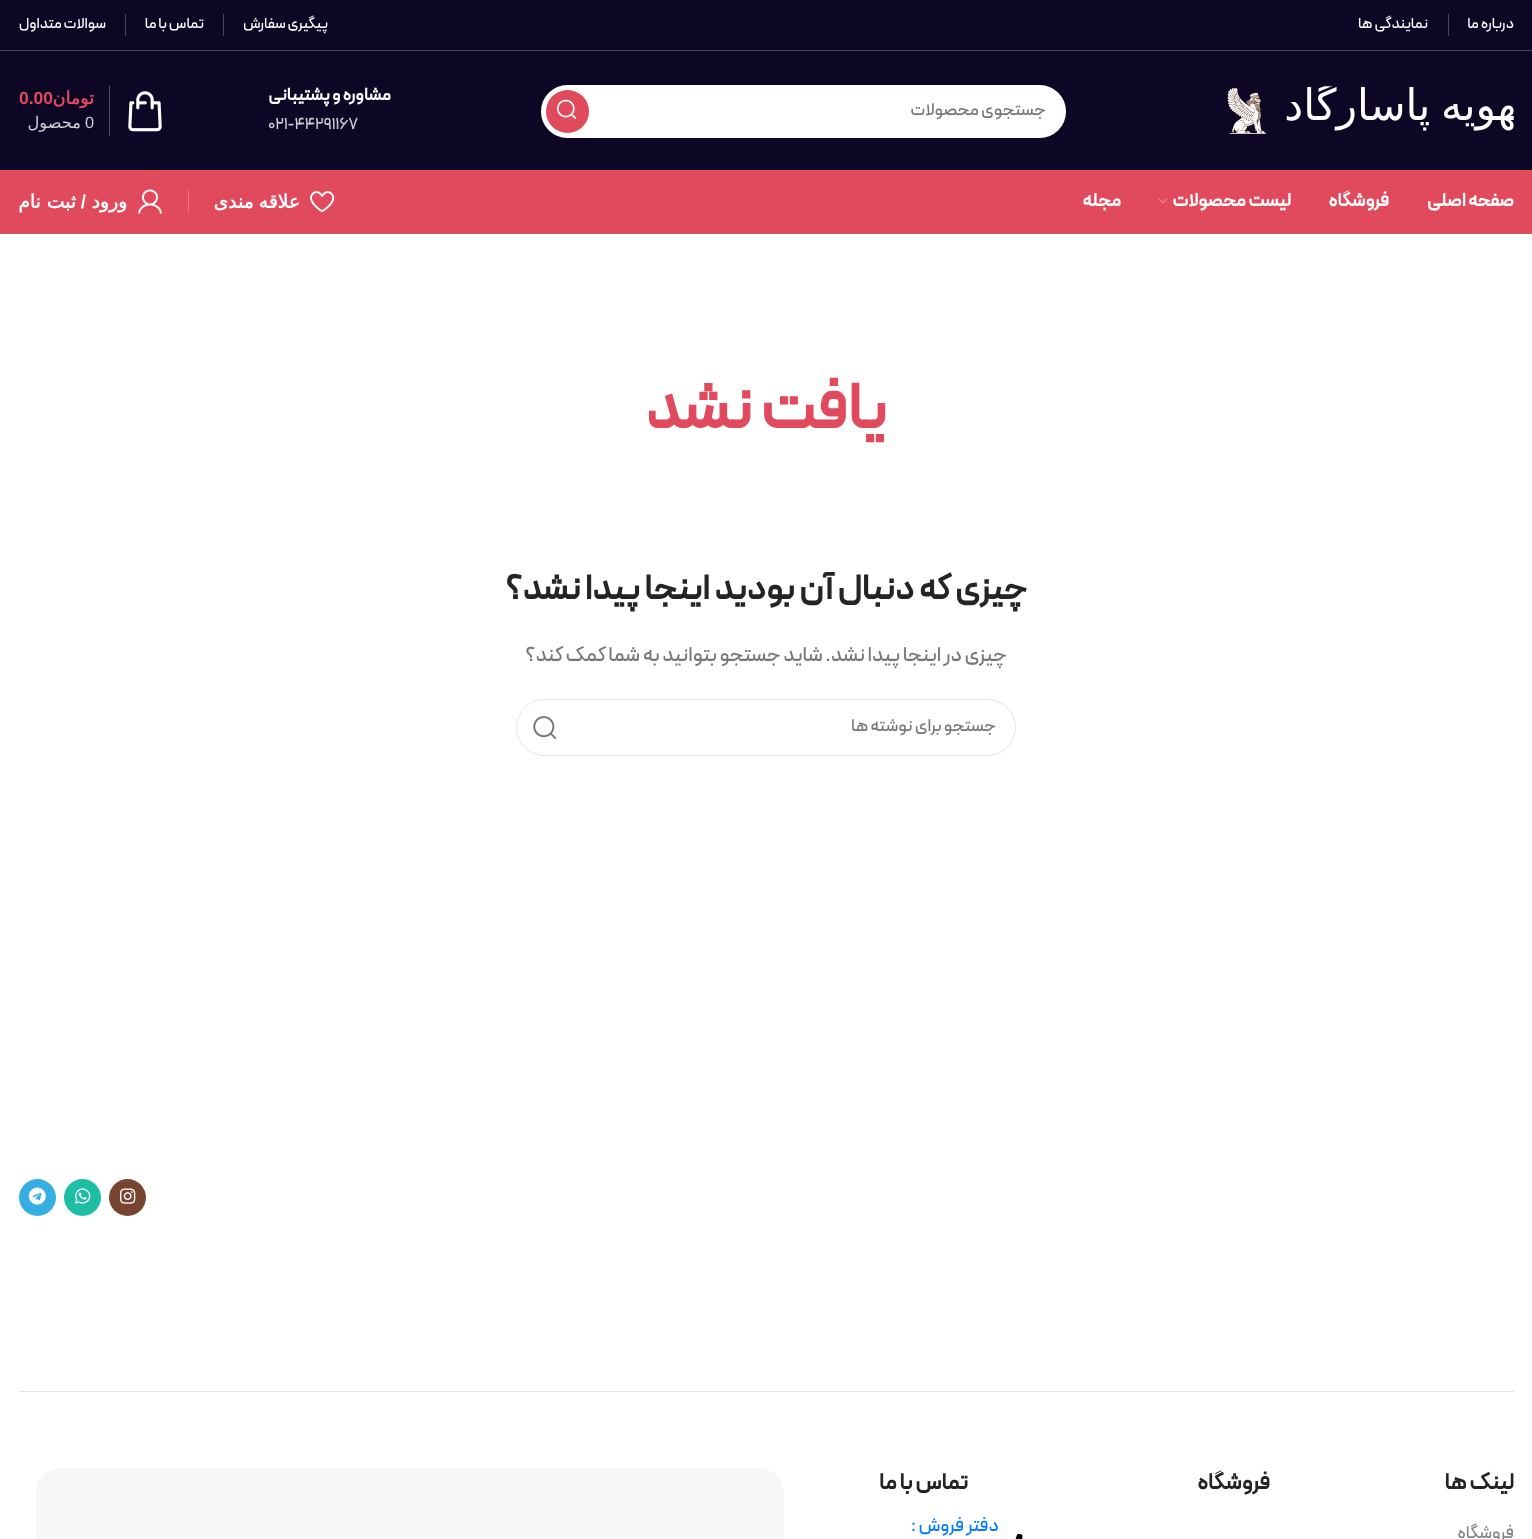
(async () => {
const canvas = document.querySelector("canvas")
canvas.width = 1532
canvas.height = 1539
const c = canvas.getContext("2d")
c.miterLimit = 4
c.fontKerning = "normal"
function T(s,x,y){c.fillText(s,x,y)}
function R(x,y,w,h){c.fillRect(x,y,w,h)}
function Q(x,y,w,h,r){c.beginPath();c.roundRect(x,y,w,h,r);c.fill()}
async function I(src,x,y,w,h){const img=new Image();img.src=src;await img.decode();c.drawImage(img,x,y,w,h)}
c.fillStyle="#fff"
R(0,0,1532,1539)
c.fillStyle="#0d0625"
R(0,0,1532,50)
c.fillStyle="#4a445c"
R(0,50,1532,1)
c.direction="rtl"
c.font="500 15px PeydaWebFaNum"
c.fillStyle="#fff"
T("درباره ما",1514,28)
c.fillStyle="#4a445c"
R(1448,14,1,22)
c.fillStyle="#fff"
T("نمایندگی ها",1428,28)
T("پیگیری سفارش",328,28)
c.fillStyle="#4a445c"
R(223,14,1,22)
c.fillStyle="#fff"
T("تماس با ما",204,28)
c.fillStyle="#4a445c"
R(125,14,1,22)
c.fillStyle="#fff"
T("سوالات متداول",106,28)
c.fillStyle="#0d0625"
R(0,51,1532,119)
await I("1.png",1227,86,287,48)
c.fillStyle="#fff"
Q(541,85,525,53,26.5)
c.beginPath()
c.roundRect(541.5,85.5,524,52,26)
c.strokeStyle="#ffffff33"
c.stroke()
c.font="500 17.5px PeydaWebFaNum"
c.fillStyle="#767676"
T("جستجوی محصولات",1046,115)
c.fillStyle="#e14a5c"
c.beginPath()
c.arc(567.5,111.5,21.5,0,7)
c.fill()
await I("2.png",556,99,21,21)
c.font="bold 17.5px PeydaWebFaNum"
c.fillStyle="#fff"
T("مشاوره و پشتیبانی",391,100)
c.direction="ltr"
c.font="500 16.25px PeydaWebFaNum"
c.fillStyle="#cfcdd3"
T("021-44291167",268,129)
await I("3.png",128,91,34,41)
c.fillStyle="#565166"
R(109,86,1,50)
c.direction="rtl"
c.font="bold 17.5px DejaVu Sans"
c.fillStyle="#e14a5c"
T("تومان",94,104)
c.direction="ltr"
c.font="bold 17.5px Liberation Sans"
T("0.00",19,104)
c.font="16.25px Liberation Sans"
c.fillStyle="#cfcdd3"
T("0",85,128)
c.direction="rtl"
c.font="16.25px DejaVu Sans"
T("محصول",81,128)
c.fillStyle="#e14a5c"
R(0,170,1532,63)
c.fillStyle="#ce5563"
R(0,233,1532,1)
c.font="bold 18.75px PeydaWebFaNum"
c.fillStyle="#fff"
T("صفحه اصلی",1514,206)
T("فروشگاه",1389,206)
T("لیست محصولات",1291,206)
await I("4.png",1158,198,9,6)
T("مجله",1121,206)
await I("5.png",310,191,25,21)
c.wordSpacing="-1px"
c.font="bold 18.75px DejaVu Sans"
T("علاقه مندی",300,208)
c.fillStyle="#e97785"
R(188,190,1,23)
await I("6.png",138,189,24,25)
c.wordSpacing="0px"
c.fillStyle="#fff"
T("ورود",127,208)
c.font="bold 18.75px Liberation Sans"
T("/",86,208)
c.font="bold 18.75px DejaVu Sans"
T("ثبت نام",76,208)
c.font="bold 64.5px PeydaWebFaNum"
c.fillStyle="#e14a5c"
T("یافت نشد",887,428)
c.font="bold 35px PeydaWebFaNum"
c.fillStyle="#242424"
T("چیزی که دنبال آن بودید اینجا پیدا نشد؟",1027,599)
c.font="500 20.6px PeydaWebFaNum"
c.fillStyle="#767676"
T("چیزی در اینجا پیدا نشد. شاید جستجو بتوانید به شما کمک کند؟",1007,661)
c.beginPath()
c.roundRect(516.5,699.5,499,56,28)
c.strokeStyle="#e6e6e6"
c.stroke()
c.font="500 17.5px PeydaWebFaNum"
T("جستجو برای نوشته ها",996,731)
await I("7.png",533,716,24,24)
c.fillStyle="#e3e3e3"
R(19,1391,1495,1)
c.fillStyle="#774430"
c.beginPath()
c.arc(127.5,1197.5,18.5,0,7)
c.fill()
await I("8.png",120,1188,16,16)
c.fillStyle="#1ebea5"
c.beginPath()
c.arc(82.5,1197.5,18.5,0,7)
c.fill()
await I("9.png",75,1188,16,16)
c.fillStyle="#37aee2"
c.beginPath()
c.arc(37.5,1197.5,18.5,0,7)
c.fill()
await I("10.png",28,1187,18,18)
c.font="bold 22.5px PeydaWebFaNum"
c.fillStyle="#242424"
T("لینک ها",1514,1489)
c.font="500 17.5px PeydaWebFaNum"
c.fillStyle="#838383"
T("فروشگاه",1514,1538)
c.font="bold 22.5px PeydaWebFaNum"
c.fillStyle="#242424"
T("فروشگاه",1270,1489)
T("تماس با ما",968,1489)
c.font="500 18.75px PeydaWebFaNum"
c.fillStyle="#007aff"
T("دفتر فروش :",999,1531)
await I("11.png",1015,1534,8,5)
c.fillStyle="#f6f5f8"
Q(36,1468,748,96,25)
})()
